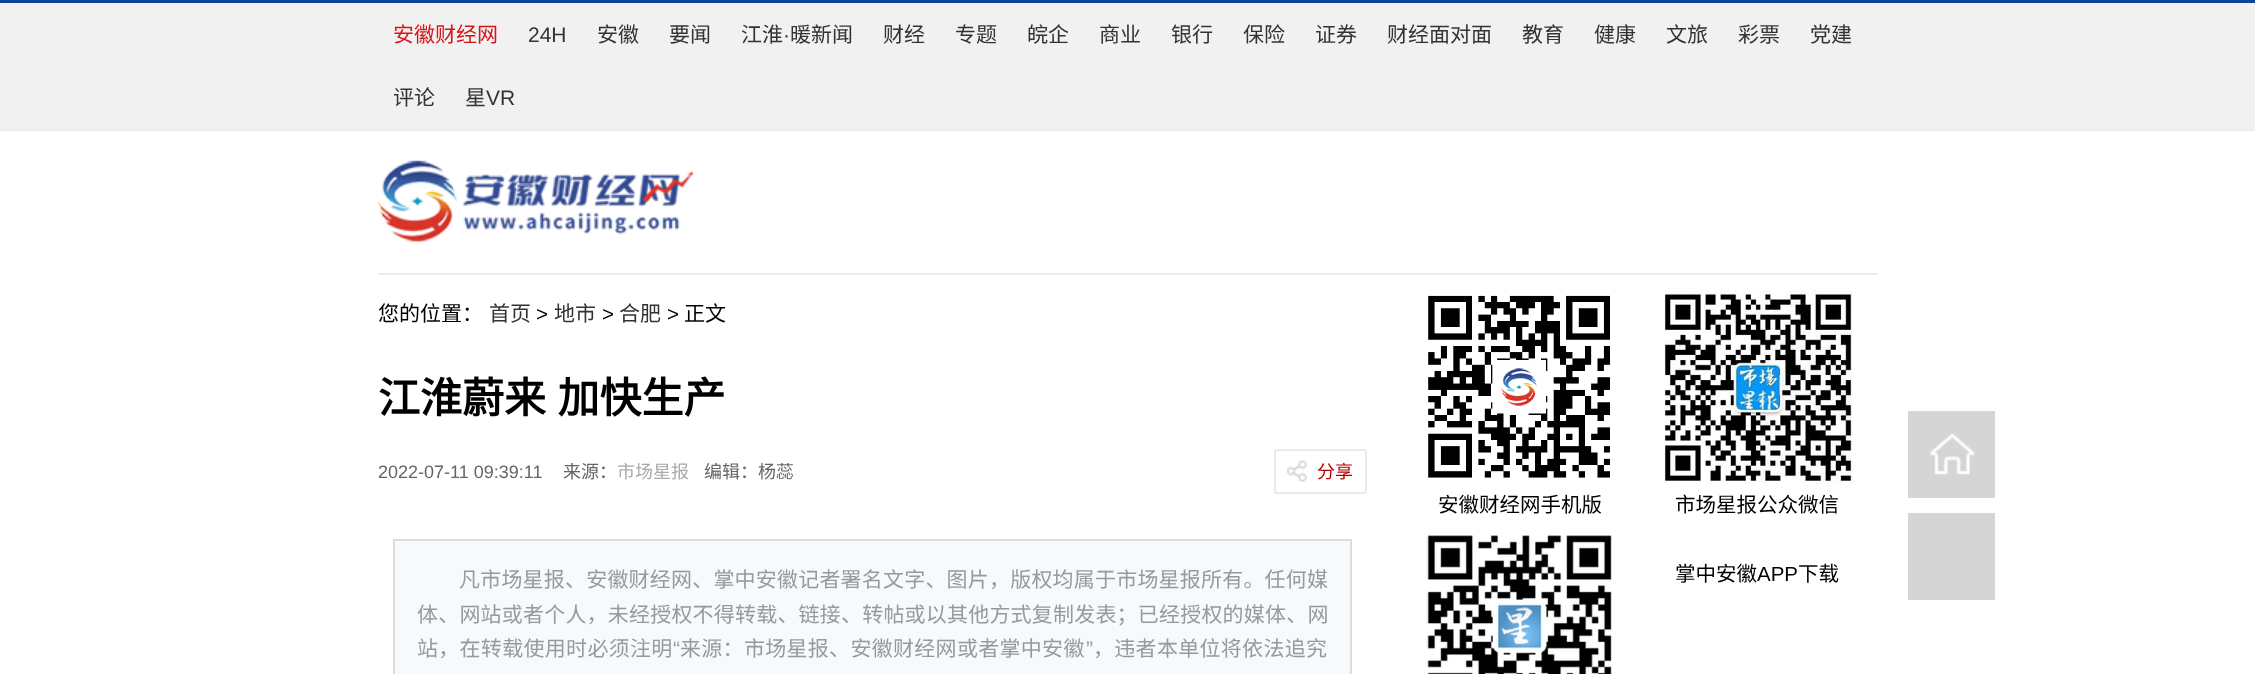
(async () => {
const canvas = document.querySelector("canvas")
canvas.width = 2255
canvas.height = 674
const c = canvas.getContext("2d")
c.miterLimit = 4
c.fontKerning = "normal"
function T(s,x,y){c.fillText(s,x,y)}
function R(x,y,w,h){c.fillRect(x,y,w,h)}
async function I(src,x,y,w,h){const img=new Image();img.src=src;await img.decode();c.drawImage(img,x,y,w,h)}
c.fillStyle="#fff"
R(0,0,2255,674)
c.fillStyle="#f1f1f1"
R(0,3,2255,126)
c.fillStyle="#104296"
R(0,0,2255,3)
c.fillStyle="#ededed"
R(0,129,2255,2)
c.font="21px Noto Sans CJK SC"
c.fillStyle="#d61518"
T("安徽财经网",393,42)
c.font="21px Liberation Sans"
c.fillStyle="#333"
T("24H",528,42)
c.font="21px Noto Sans CJK SC"
T("安徽",597,42)
T("要闻",669,42)
T("江淮",741,42)
c.font="21px Liberation Sans"
T("·",783,42)
c.font="21px Noto Sans CJK SC"
T("暖新闻",790,42)
T("财经",883,42)
T("专题",955,42)
T("皖企",1027,42)
T("商业",1099,42)
T("银行",1171,42)
T("保险",1243,42)
T("证券",1315,42)
T("财经面对面",1387,42)
T("教育",1522,42)
T("健康",1594,42)
T("文旅",1666,42)
T("彩票",1738,42)
T("党建",1810,42)
T("评论",393,105)
T("星",465,105)
c.font="21px Liberation Sans"
T("VR",486,105)
c.fillStyle="#ededed"
R(378,273,1500,2)
await I("1.png",378,160,315,82)
c.font="21px Noto Sans CJK SC"
c.fillStyle="#000"
T("您的位置：",378,321)
c.fillStyle="#333"
T("首页",489,321)
c.font="20.5px Liberation Sans"
c.fillStyle="#000"
T(">",536,321)
c.font="21px Noto Sans CJK SC"
c.fillStyle="#333"
T("地市",554,321)
c.font="20.5px Liberation Sans"
c.fillStyle="#000"
T(">",602,321)
c.font="21px Noto Sans CJK SC"
c.fillStyle="#333"
T("合肥",619,321)
c.font="20.5px Liberation Sans"
c.fillStyle="#000"
T(">",667,321)
c.font="21px Noto Sans CJK SC"
T("正文",684,321)
c.wordSpacing="2px"
c.font="bold 42px Noto Sans CJK SC"
T("江淮蔚来 加快生产",378,413)
c.wordSpacing="0px"
c.font="18px Liberation Sans"
c.fillStyle="#666"
T("2022-07-11 09:39:11",378,478)
c.font="18px Noto Sans CJK SC"
T("来源：",563,478)
c.fillStyle="#aaa"
T("市场星报",617,478)
c.fillStyle="#666"
T("编辑：杨蕊",704,478)
await I("2.png",1286,460,21,22)
c.beginPath()
c.roundRect(1275,450,91,43,2)
c.strokeStyle="#eaeaea"
c.lineWidth=2
c.stroke()
c.fillStyle="#b40000"
T("分享",1317,478)
c.fillStyle="#f6fafd"
c.beginPath()
c.rect(394,540,957,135)
c.fill()
c.strokeStyle="#dcdddd"
c.stroke()
c.letterSpacing="0.2px"
c.font="21px Noto Sans CJK SC"
c.fillStyle="#999"
T("凡市场星报、安徽财经网、掌中安徽记者署名文字、图片，版权均属于市场星报所有。任何媒",459,587)
T("体、网站或者个人，未经授权不得转载、链接、转帖或以其他方式复制发表；已经授权的媒体、网",417,622)
c.letterSpacing="0.3px"
T("站，在转载使用时必须注明",417,656)
c.font="21px Liberation Sans"
T("“",673,656)
c.font="21px Noto Sans CJK SC"
T("来源：市场星报、安徽财经网或者掌中安徽",680,656)
c.font="21px Liberation Sans"
T("”",1086,656)
c.font="21px Noto Sans CJK SC"
T("，违者本单位将依法追究",1093,656)
await I("3.png",1428,295,182,183)
c.letterSpacing="0px"
c.font="20.5px Noto Sans CJK SC"
c.fillStyle="#000"
T("安徽财经网手机版",1438,512)
await I("4.png",1664,290,190,194)
T("市场星报公众微信",1675,512)
await I("5.png",1426,535,186,139)
T("掌中安徽",1675,581)
c.font="20.5px Liberation Sans"
T("APP",1757,581)
c.font="20.5px Noto Sans CJK SC"
T("下载",1798,581)
c.fillStyle="#d5d5d5"
R(1908,411,87,87)
await I("6.png",1930,433,45,42)
R(1908,513,87,87)
})()
